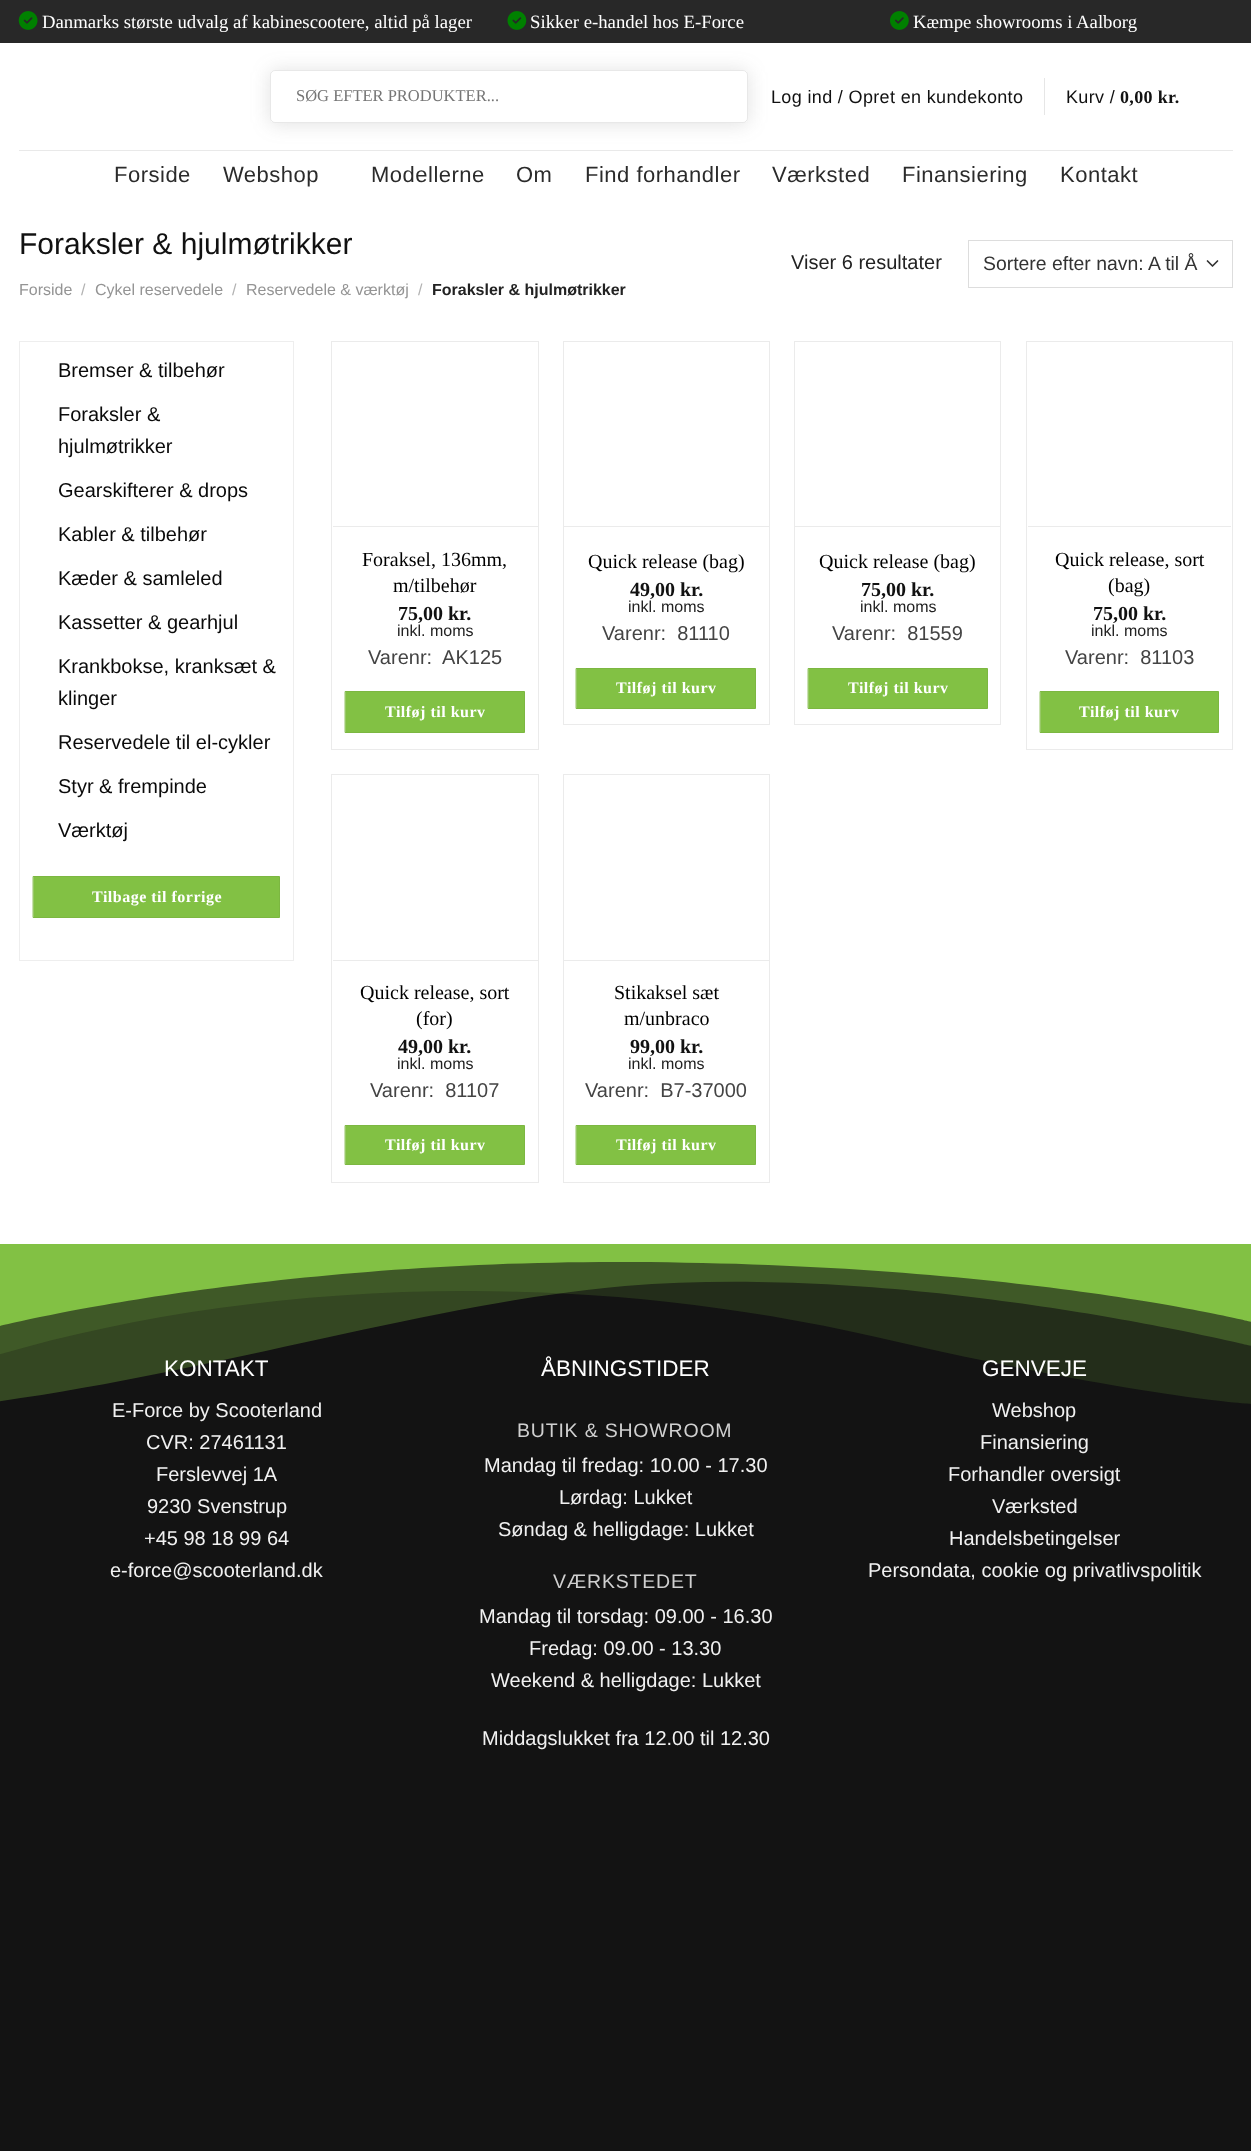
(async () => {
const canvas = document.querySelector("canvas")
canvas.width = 1251
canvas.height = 2151
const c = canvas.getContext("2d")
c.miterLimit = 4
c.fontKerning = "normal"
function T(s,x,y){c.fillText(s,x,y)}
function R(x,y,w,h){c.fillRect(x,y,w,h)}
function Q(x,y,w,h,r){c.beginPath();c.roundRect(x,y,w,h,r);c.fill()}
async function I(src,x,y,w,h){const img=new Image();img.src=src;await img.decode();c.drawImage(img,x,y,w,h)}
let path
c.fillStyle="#fff"
R(0,0,1251,2151)
c.fillStyle="#64646433"
c.filter="blur(9.5px)"
c.beginPath()
c.roundRect(270,71,478,53,5)
c.fill()
c.filter="none"
c.fillStyle="#282828"
R(0,0,1251,43)
await I("1.png",18,11,20,19)
c.font="18.75px Liberation Serif"
c.fillStyle="#fff"
T("Danmarks største udvalg af kabinescootere, altid på lager",42,28)
await I("2.png",507,11,20,19)
T("Sikker e-handel hos E-Force",530,28)
await I("3.png",890,11,19,19)
T("Kæmpe showrooms i Aalborg",913,28)
Q(270,70,478,53,5)
c.beginPath()
c.roundRect(270.5,70.5,477,52,4.5)
c.strokeStyle="#00000017"
c.stroke()
c.font="16.5px Liberation Serif"
c.fillStyle="#757575"
T("SØG EFTER PRODUKTER...",296,101)
c.letterSpacing="0.35px"
c.font="18px Liberation Sans"
c.fillStyle="#111"
T("Log ind / Opret en kundekonto",771,103)
c.fillStyle="#e6e6e6"
R(1044,78,1,37)
c.fillStyle="#111"
T("Kurv /",1066,103)
c.font="bold 18px Liberation Serif"
T("0,00 kr.",1120,103)
c.fillStyle="#e9e9e9"
R(19,150,1214,1)
c.letterSpacing="0.5px"
c.font="22px Liberation Sans"
c.fillStyle="#2b2b2b"
T("Forside",114,182)
T("Webshop",223,182)
T("Modellerne",371,182)
T("Om",516,182)
T("Find forhandler",585,182)
T("Værksted",772,182)
T("Finansiering",902,182)
T("Kontakt",1060,182)
c.letterSpacing="0px"
c.font="30px Liberation Sans"
c.fillStyle="#111"
T("Foraksler & hjulmøtrikker",19,254)
c.font="16px Liberation Sans"
c.fillStyle="#949494"
T("Forside",19,295)
c.fillStyle="#b2b2b2"
T("/",81,295)
c.fillStyle="#949494"
T("Cykel reservedele",95,295)
c.fillStyle="#b2b2b2"
T("/",232,295)
c.fillStyle="#949494"
T("Reservedele & værktøj",246,295)
c.fillStyle="#b2b2b2"
T("/",418,295)
c.font="bold 16px Liberation Sans"
c.fillStyle="#222"
T("Foraksler & hjulmøtrikker",432,295)
c.font="20px Liberation Sans"
T("Viser 6 resultater",791,269)
path = new Path2D("M1207.5 261l5 5l5-5")
c.strokeStyle="#333"
c.lineWidth=1.7
c.lineCap="round"
c.lineJoin="round"
c.stroke(path)
c.strokeStyle="#ddd"
c.lineWidth=1
c.lineJoin="miter"
c.strokeRect(968.5,240.5,264,47)
c.font="19.4px Liberation Sans"
c.fillStyle="#333"
T("Sortere efter navn: A til Å",983,270)
c.strokeStyle="#eee"
c.strokeRect(19.5,341.5,274,619)
c.font="20px Liberation Sans"
c.fillStyle="#0a0a0a"
T("Bremser & tilbehør",58,377)
T("Foraksler &",58,421)
T("hjulmøtrikker",58,453)
T("Gearskifterer & drops",58,497)
T("Kabler & tilbehør",58,541)
T("Kæder & samleled",58,585)
T("Kassetter & gearhjul",58,629)
T("Krankbokse, kranksæt &",58,673)
T("klinger",58,705)
T("Reservedele til el-cykler",58,749)
T("Styr & frempinde",58,793)
T("Værktøj",58,837)
c.fillStyle="#82c144"
c.beginPath()
c.rect(33.5,876.5,246,41)
c.fill()
c.strokeStyle="#7cb741"
c.stroke()
c.letterSpacing="0.5px"
c.font="bold 16px Liberation Serif"
c.fillStyle="#fff"
T("Tilbage til forrige",92,902)
c.strokeStyle="#ebebeb"
c.strokeRect(331.5,341.5,207,408)
c.fillStyle="#ebebeb"
R(333,526,205,1)
c.letterSpacing="0px"
c.font="20px Liberation Serif"
c.fillStyle="#000"
T("Foraksel, 136mm,",362,566)
T("m/tilbehør",393,592)
c.font="bold 20px Liberation Serif"
c.fillStyle="#111"
T("75,00 kr.",398,620)
c.font="16px Liberation Sans"
c.fillStyle="#222"
T("inkl. moms",397,636)
c.font="20px Liberation Sans"
c.fillStyle="#444"
T("Varenr:  AK125",368,664)
c.fillStyle="#82c144"
c.beginPath()
c.rect(345.5,691.5,179,41)
c.fill()
c.strokeStyle="#7cb741"
c.stroke()
c.letterSpacing="0.5px"
c.font="bold 16px Liberation Serif"
c.fillStyle="#fff"
T("Tilføj til kurv",385,717)
c.strokeStyle="#ebebeb"
c.strokeRect(563.5,341.5,206,383)
c.fillStyle="#ebebeb"
R(564,526,205,1)
c.letterSpacing="0px"
c.font="20px Liberation Serif"
c.fillStyle="#000"
T("Quick release (bag)",588,568)
c.font="bold 20px Liberation Serif"
c.fillStyle="#111"
T("49,00 kr.",630,596)
c.font="16px Liberation Sans"
c.fillStyle="#222"
T("inkl. moms",628,612)
c.font="20px Liberation Sans"
c.fillStyle="#444"
T("Varenr:  81110",602,640)
c.fillStyle="#82c144"
c.beginPath()
c.rect(576.5,668.5,179,40)
c.fill()
c.strokeStyle="#7cb741"
c.stroke()
c.letterSpacing="0.5px"
c.font="bold 16px Liberation Serif"
c.fillStyle="#fff"
T("Tilføj til kurv",616,693)
c.strokeStyle="#ebebeb"
c.strokeRect(794.5,341.5,206,383)
c.fillStyle="#ebebeb"
R(795,526,205,1)
c.letterSpacing="0px"
c.font="20px Liberation Serif"
c.fillStyle="#000"
T("Quick release (bag)",819,568)
c.font="bold 20px Liberation Serif"
c.fillStyle="#111"
T("75,00 kr.",861,596)
c.font="16px Liberation Sans"
c.fillStyle="#222"
T("inkl. moms",860,612)
c.font="20px Liberation Sans"
c.fillStyle="#444"
T("Varenr:  81559",832,640)
c.fillStyle="#82c144"
c.beginPath()
c.rect(808.5,668.5,179,40)
c.fill()
c.strokeStyle="#7cb741"
c.stroke()
c.letterSpacing="0.5px"
c.font="bold 16px Liberation Serif"
c.fillStyle="#fff"
T("Tilføj til kurv",848,693)
c.strokeStyle="#ebebeb"
c.strokeRect(1026.5,341.5,206,408)
c.fillStyle="#ebebeb"
R(1028,526,203,1)
c.letterSpacing="0px"
c.font="20px Liberation Serif"
c.fillStyle="#000"
T("Quick release, sort",1055,566)
T("(bag)",1108,592)
c.font="bold 20px Liberation Serif"
c.fillStyle="#111"
T("75,00 kr.",1093,620)
c.font="16px Liberation Sans"
c.fillStyle="#222"
T("inkl. moms",1091,636)
c.font="20px Liberation Sans"
c.fillStyle="#444"
T("Varenr:  81103",1065,664)
c.fillStyle="#82c144"
c.beginPath()
c.rect(1040.5,691.5,178,41)
c.fill()
c.strokeStyle="#7cb741"
c.stroke()
c.letterSpacing="0.5px"
c.font="bold 16px Liberation Serif"
c.fillStyle="#fff"
T("Tilføj til kurv",1079,717)
c.strokeStyle="#ebebeb"
c.strokeRect(331.5,774.5,207,408)
c.fillStyle="#ebebeb"
R(333,960,205,1)
c.letterSpacing="0px"
c.font="20px Liberation Serif"
c.fillStyle="#000"
T("Quick release, sort",360,999)
T("(for)",416,1025)
c.font="bold 20px Liberation Serif"
c.fillStyle="#111"
T("49,00 kr.",398,1053)
c.font="16px Liberation Sans"
c.fillStyle="#222"
T("inkl. moms",397,1069)
c.font="20px Liberation Sans"
c.fillStyle="#444"
T("Varenr:  81107",370,1097)
c.fillStyle="#82c144"
c.beginPath()
c.rect(345.5,1125.5,179,39)
c.fill()
c.strokeStyle="#7cb741"
c.stroke()
c.letterSpacing="0.5px"
c.font="bold 16px Liberation Serif"
c.fillStyle="#fff"
T("Tilføj til kurv",385,1150)
c.strokeStyle="#ebebeb"
c.strokeRect(563.5,774.5,206,408)
c.fillStyle="#ebebeb"
R(564,960,205,1)
c.letterSpacing="0px"
c.font="20px Liberation Serif"
c.fillStyle="#000"
T("Stikaksel sæt",614,999)
T("m/unbraco",624,1025)
c.font="bold 20px Liberation Serif"
c.fillStyle="#111"
T("99,00 kr.",630,1053)
c.font="16px Liberation Sans"
c.fillStyle="#222"
T("inkl. moms",628,1069)
c.font="20px Liberation Sans"
c.fillStyle="#444"
T("Varenr:  B7-37000",585,1097)
c.fillStyle="#82c144"
c.beginPath()
c.rect(576.5,1125.5,179,39)
c.fill()
c.strokeStyle="#7cb741"
c.stroke()
c.letterSpacing="0.5px"
c.font="bold 16px Liberation Serif"
c.fillStyle="#fff"
T("Tilføj til kurv",616,1150)
c.fillStyle="#131313"
R(0,1262,1251,889)
c.save()
c.beginPath()
c.rect(0,1244,1251,187)
c.clip()
c.fillStyle="#82c14426"
path = new Path2D("M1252 1404c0 0-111-6-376-67c-326-75-645-51-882 19l-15-53l-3-67h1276z")
c.fill(path)
c.fillStyle="#82c1444d"
path = new Path2D("M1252 1346c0 0-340-84-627-60c-197 17-414 88-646 118v-161h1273z")
c.fill(path)
c.fillStyle="#82c144"
path = new Path2D("M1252 1322c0 0-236-60-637-60c-364 0-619 65-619 65v-84h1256z")
c.fill(path)
c.restore()
c.letterSpacing="0px"
c.font="22.5px Liberation Sans"
c.fillStyle="#fff"
T("KONTAKT",164,1376)
c.font="20px Liberation Sans"
c.fillStyle="#f1f1f1"
T("E-Force by Scooterland",112,1417)
T("CVR: 27461131",146,1449)
T("Ferslevvej 1A",156,1481)
T("9230 Svenstrup",147,1513)
T("+45 98 18 99 64",144,1545)
T("e-force@scooterland.dk",110,1577)
c.font="22.5px Liberation Sans"
c.fillStyle="#fff"
T("ÅBNINGSTIDER",541,1376)
c.letterSpacing="0.8px"
c.font="19.5px Liberation Sans"
c.fillStyle="#d0d0d0"
T("BUTIK & SHOWROOM",517,1437)
c.letterSpacing="0px"
c.font="20px Liberation Sans"
c.fillStyle="#f1f1f1"
T("Mandag til fredag: 10.00 - 17.30",484,1472)
T("Lørdag: Lukket",559,1504)
T("Søndag & helligdage: Lukket",498,1536)
c.letterSpacing="0.8px"
c.font="19.5px Liberation Sans"
c.fillStyle="#d0d0d0"
T("VÆRKSTEDET",553,1588)
c.letterSpacing="0px"
c.font="20px Liberation Sans"
c.fillStyle="#f1f1f1"
T("Mandag til torsdag: 09.00 - 16.30",479,1623)
T("Fredag: 09.00 - 13.30",529,1655)
T("Weekend & helligdage: Lukket",491,1687)
T("Middagslukket fra 12.00 til 12.30",482,1745)
c.font="22.5px Liberation Sans"
c.fillStyle="#fff"
T("GENVEJE",982,1376)
c.font="20px Liberation Sans"
c.fillStyle="#f1f1f1"
T("Webshop",992,1417)
T("Finansiering",980,1449)
T("Forhandler oversigt",948,1481)
T("Værksted",992,1513)
T("Handelsbetingelser",949,1545)
T("Persondata, cookie og privatlivspolitik",868,1577)
})()
